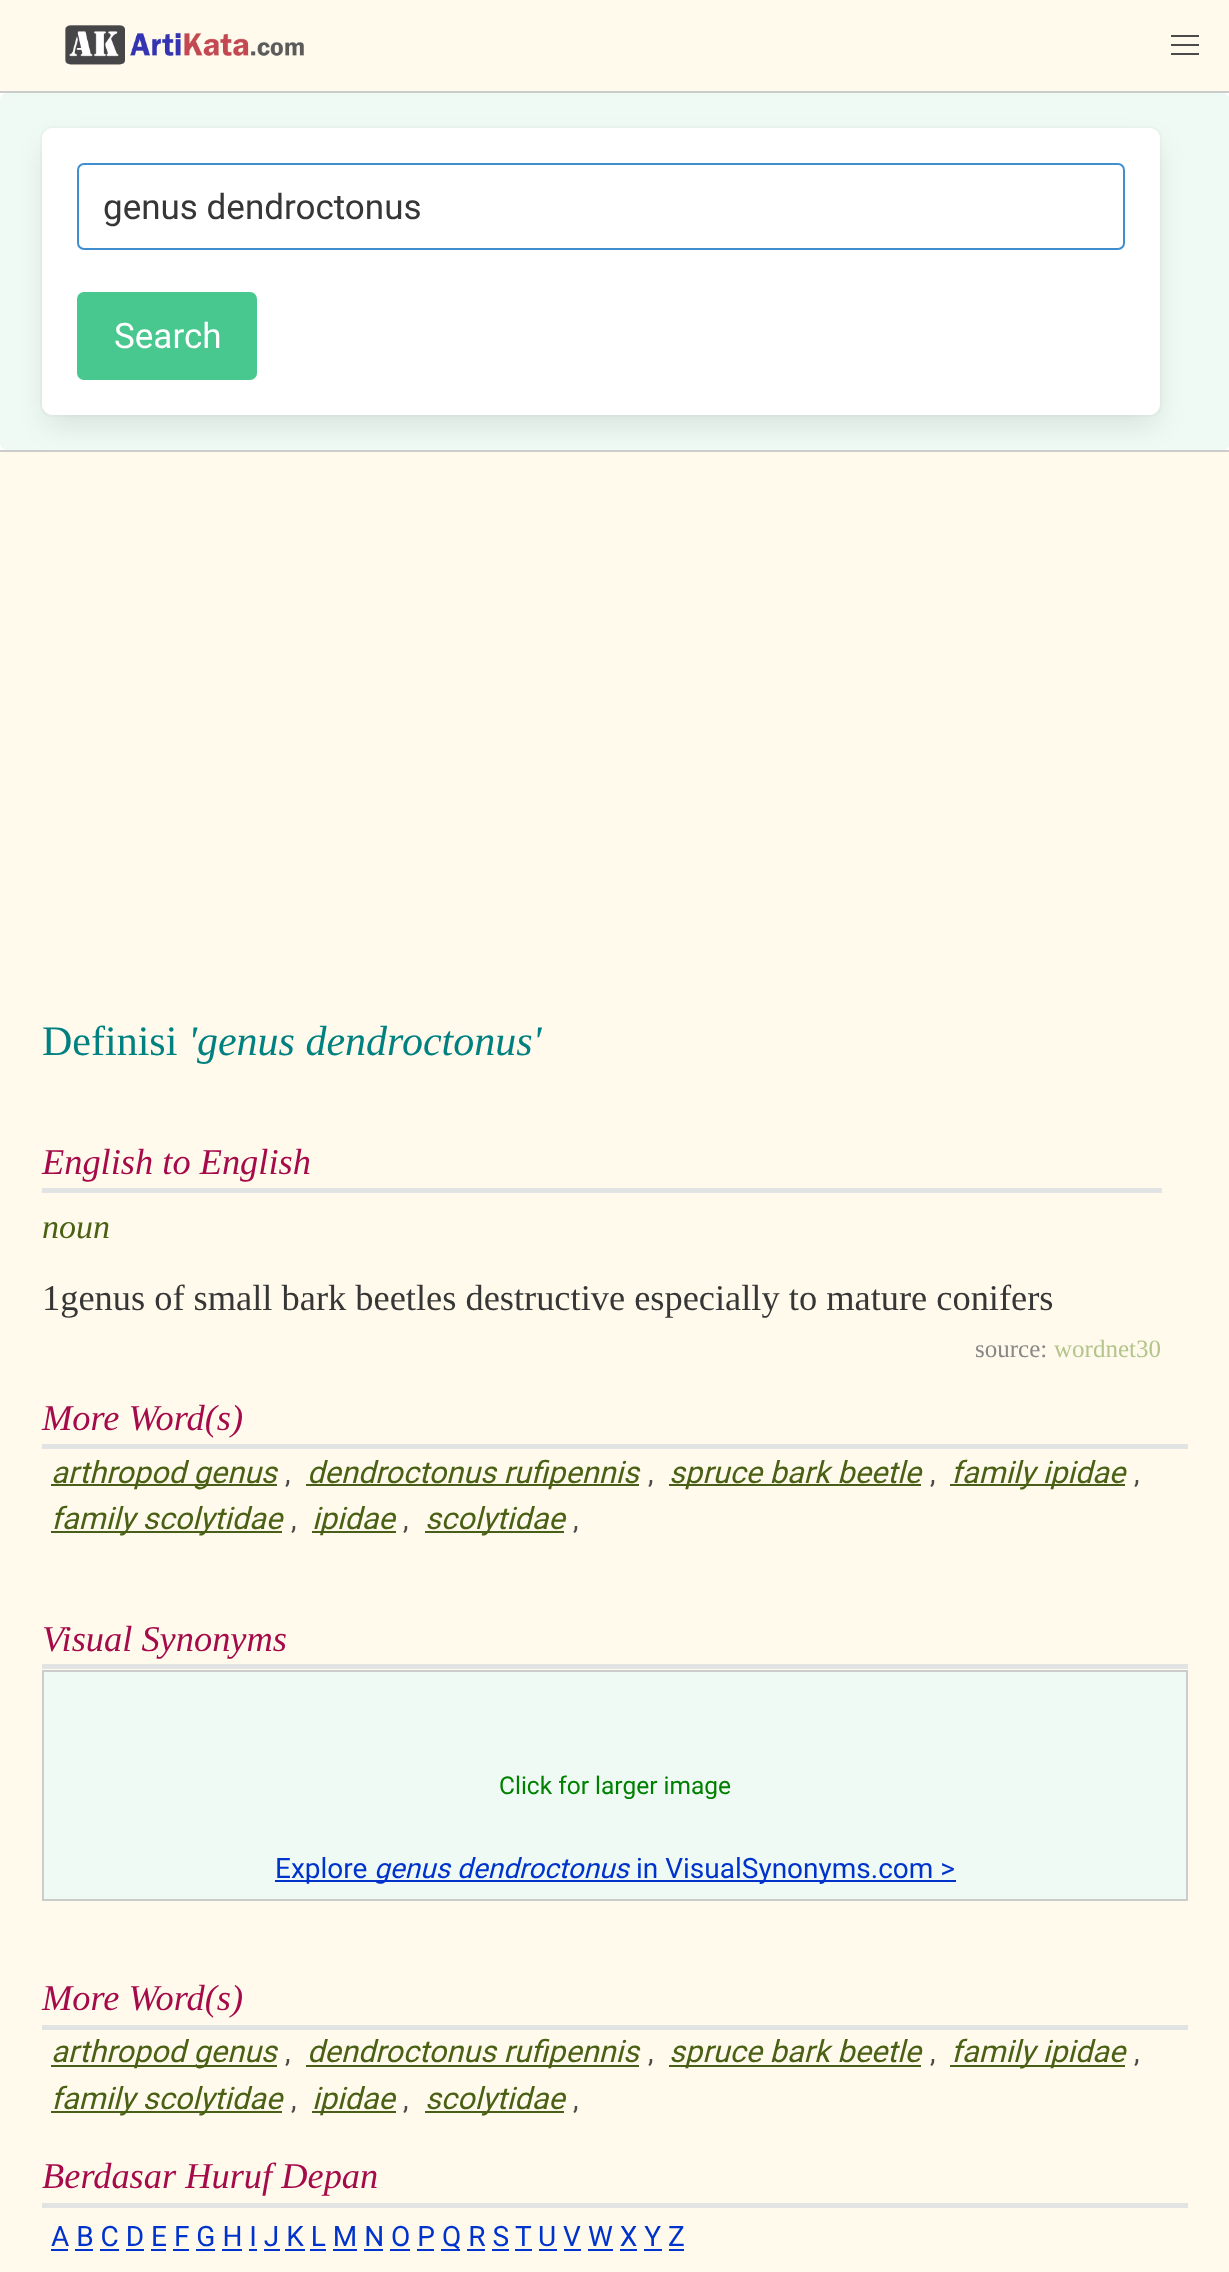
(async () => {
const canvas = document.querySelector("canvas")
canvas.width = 1229
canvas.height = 2272
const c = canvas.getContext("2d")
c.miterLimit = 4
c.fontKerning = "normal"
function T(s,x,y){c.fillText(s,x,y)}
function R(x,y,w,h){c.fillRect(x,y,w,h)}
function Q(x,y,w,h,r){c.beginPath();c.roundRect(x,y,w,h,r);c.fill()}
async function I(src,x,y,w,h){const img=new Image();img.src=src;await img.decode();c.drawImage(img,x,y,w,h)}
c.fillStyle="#fff"
R(0,0,1229,2272)
c.fillStyle="#fffaeb"
R(0,0,1229,91)
c.fillStyle="#ccc"
R(0,91,1229,2)
await I("1.png",65,25,239,40)
c.fillStyle="#4a4a4a"
R(1171,35,28,2)
R(1171,44,28,2)
R(1171,53,28,2)
c.fillStyle="#effaf5"
Q(0,93,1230,357,7)
c.beginPath()
c.roundRect(41,127,1120,289,11)
c.strokeStyle="#eaf5f0"
c.lineWidth=2
c.stroke()
c.fillStyle="#0a0a0a1a"
c.filter="blur(14px)"
c.beginPath()
c.roundRect(46,145,1111,280,7)
c.fill()
c.filter="none"
c.fillStyle="#fff"
Q(42,128,1118,287,11)
c.beginPath()
c.roundRect(78,164,1046,85,6)
c.strokeStyle="#3e8ed0"
c.stroke()
c.font="35px Roboto"
c.fillStyle="#363636"
T("genus dendroctonus",103,219)
c.fillStyle="#48c78e"
Q(77,292,180,88,7)
c.fillStyle="#fff"
T("Search",114,348)
c.fillStyle="#fffaeb"
R(0,452,1229,1820)
c.fillStyle="#ccc"
R(0,450,1229,2)
c.font="42px Liberation Serif"
c.fillStyle="#008080"
T("Definisi",42,1055)
c.font="italic 42px Liberation Serif"
T("'genus dendroctonus'",188,1055)
c.fillStyle="#e2e3e3"
R(42,1188,1120,5)
c.font="italic 36.4px Liberation Serif"
c.fillStyle="#a50b4a"
T("English to English",42,1174)
c.font="italic 34px Liberation Serif"
c.fillStyle="#496015"
T("noun",42,1238)
c.font="36.4px Liberation Serif"
c.fillStyle="#363636"
T("1genus of small bark beetles destructive especially to mature conifers",42,1310)
c.font="25px Liberation Serif"
c.fillStyle="#888"
T("source:",975,1357)
c.fillStyle="#b3c48c"
T("wordnet30",1054,1357)
c.fillStyle="#e2e3e3"
R(42,1444,1146,5)
c.font="italic 36.4px Liberation Serif"
c.fillStyle="#a50b4a"
T("More Word(s)",42,1430)
c.fillStyle="#495e19"
R(51,1484,226,2)
c.font="italic 30.75px Roboto"
c.fillStyle="#496015"
T("arthropod genus",51,1483)
c.font="28px Roboto"
c.fillStyle="#4a4a4a"
T(",",285,1483)
c.fillStyle="#495e19"
R(306,1484,333,2)
c.font="italic 30.75px Roboto"
c.fillStyle="#496015"
T("dendroctonus rufipennis",307,1483)
c.font="28px Roboto"
c.fillStyle="#4a4a4a"
T(",",648,1483)
c.fillStyle="#495e19"
R(669,1484,252,2)
c.font="italic 30.75px Roboto"
c.fillStyle="#496015"
T("spruce bark beetle",669,1483)
c.font="28px Roboto"
c.fillStyle="#4a4a4a"
T(",",930,1483)
c.fillStyle="#495e19"
R(950,1484,175,2)
c.font="italic 30.75px Roboto"
c.fillStyle="#496015"
T("family ipidae",951,1483)
c.font="28px Roboto"
c.fillStyle="#4a4a4a"
T(",",1134,1483)
c.fillStyle="#495e19"
R(51,1531,231,2)
c.font="italic 30.75px Roboto"
c.fillStyle="#496015"
T("family scolytidae",51,1529)
c.font="28px Roboto"
c.fillStyle="#4a4a4a"
T(",",291,1529)
c.fillStyle="#495e19"
R(312,1531,84,2)
c.font="italic 30.75px Roboto"
c.fillStyle="#496015"
T("ipidae",312,1529)
c.font="28px Roboto"
c.fillStyle="#4a4a4a"
T(",",403,1529)
c.fillStyle="#495e19"
R(425,1531,139,2)
c.font="italic 30.75px Roboto"
c.fillStyle="#496015"
T("scolytidae",425,1529)
c.font="28px Roboto"
c.fillStyle="#4a4a4a"
T(",",573,1529)
c.fillStyle="#e2e3e3"
R(42,1664,1146,5)
c.font="italic 36.4px Liberation Serif"
c.fillStyle="#a50b4a"
T("Visual Synonyms",42,1651)
c.fillStyle="#effaf5"
c.beginPath()
c.rect(43,1671,1144,229)
c.fill()
c.strokeStyle="#ccc"
c.stroke()
c.font="24.5px Roboto"
c.fillStyle="#008000"
T("Click for larger image",499,1794)
c.fillStyle="#03c"
R(275,1880,355,2)
c.font="28px Roboto"
T("Explore",275,1878)
c.font="italic 28px Roboto"
T("genus dendroctonus",374,1878)
R(630,1880,326,2)
c.font="28px Roboto"
T("in VisualSynonyms.com >",636,1878)
c.fillStyle="#e2e3e3"
R(42,2025,1146,5)
c.font="italic 36.4px Liberation Serif"
c.fillStyle="#a50b4a"
T("More Word(s)",42,2010)
c.fillStyle="#495e19"
R(51,2065,226,2)
c.font="italic 30.75px Roboto"
c.fillStyle="#496015"
T("arthropod genus",51,2062)
c.font="28px Roboto"
c.fillStyle="#4a4a4a"
T(",",285,2062)
c.fillStyle="#495e19"
R(306,2065,333,2)
c.font="italic 30.75px Roboto"
c.fillStyle="#496015"
T("dendroctonus rufipennis",307,2062)
c.font="28px Roboto"
c.fillStyle="#4a4a4a"
T(",",648,2062)
c.fillStyle="#495e19"
R(669,2065,252,2)
c.font="italic 30.75px Roboto"
c.fillStyle="#496015"
T("spruce bark beetle",669,2062)
c.font="28px Roboto"
c.fillStyle="#4a4a4a"
T(",",930,2062)
c.fillStyle="#495e19"
R(950,2065,175,2)
c.font="italic 30.75px Roboto"
c.fillStyle="#496015"
T("family ipidae",951,2062)
c.font="28px Roboto"
c.fillStyle="#4a4a4a"
T(",",1134,2062)
c.fillStyle="#495e19"
R(51,2111,231,2)
c.font="italic 30.75px Roboto"
c.fillStyle="#496015"
T("family scolytidae",51,2109)
c.font="28px Roboto"
c.fillStyle="#4a4a4a"
T(",",291,2109)
c.fillStyle="#495e19"
R(312,2111,84,2)
c.font="italic 30.75px Roboto"
c.fillStyle="#496015"
T("ipidae",312,2109)
c.font="28px Roboto"
c.fillStyle="#4a4a4a"
T(",",403,2109)
c.fillStyle="#495e19"
R(425,2111,139,2)
c.font="italic 30.75px Roboto"
c.fillStyle="#496015"
T("scolytidae",425,2109)
c.font="28px Roboto"
c.fillStyle="#4a4a4a"
T(",",573,2109)
c.fillStyle="#e2e3e3"
R(42,2203,1146,5)
c.font="italic 36.4px Liberation Serif"
c.fillStyle="#a50b4a"
T("Berdasar Huruf Depan",42,2188)
c.font="28px Roboto"
c.fillStyle="#03c"
T("A B C D E F G H I J K L M N O P",51,2246)
R(51,2249,17,2)
R(441,2249,19,2)
T("Q R S",442,2246)
T("T",515,2246)
R(515,2249,17,2)
T("U V W X Y Z",538,2246)
R(539,2249,18,2)
R(75,2249,18,2)
R(100,2249,19,2)
R(126,2249,18,2)
R(151,2249,15,2)
R(173,2249,16,2)
R(196,2249,19,2)
R(222,2249,20,2)
R(249,2249,8,2)
R(264,2249,16,2)
R(285,2249,20,2)
R(310,2249,16,2)
R(333,2249,24,2)
R(364,2249,19,2)
R(390,2249,20,2)
R(417,2249,17,2)
R(467,2249,18,2)
R(492,2249,17,2)
R(564,2249,17,2)
R(588,2249,25,2)
R(620,2249,17,2)
R(644,2249,18,2)
R(669,2249,15,2)
})()
